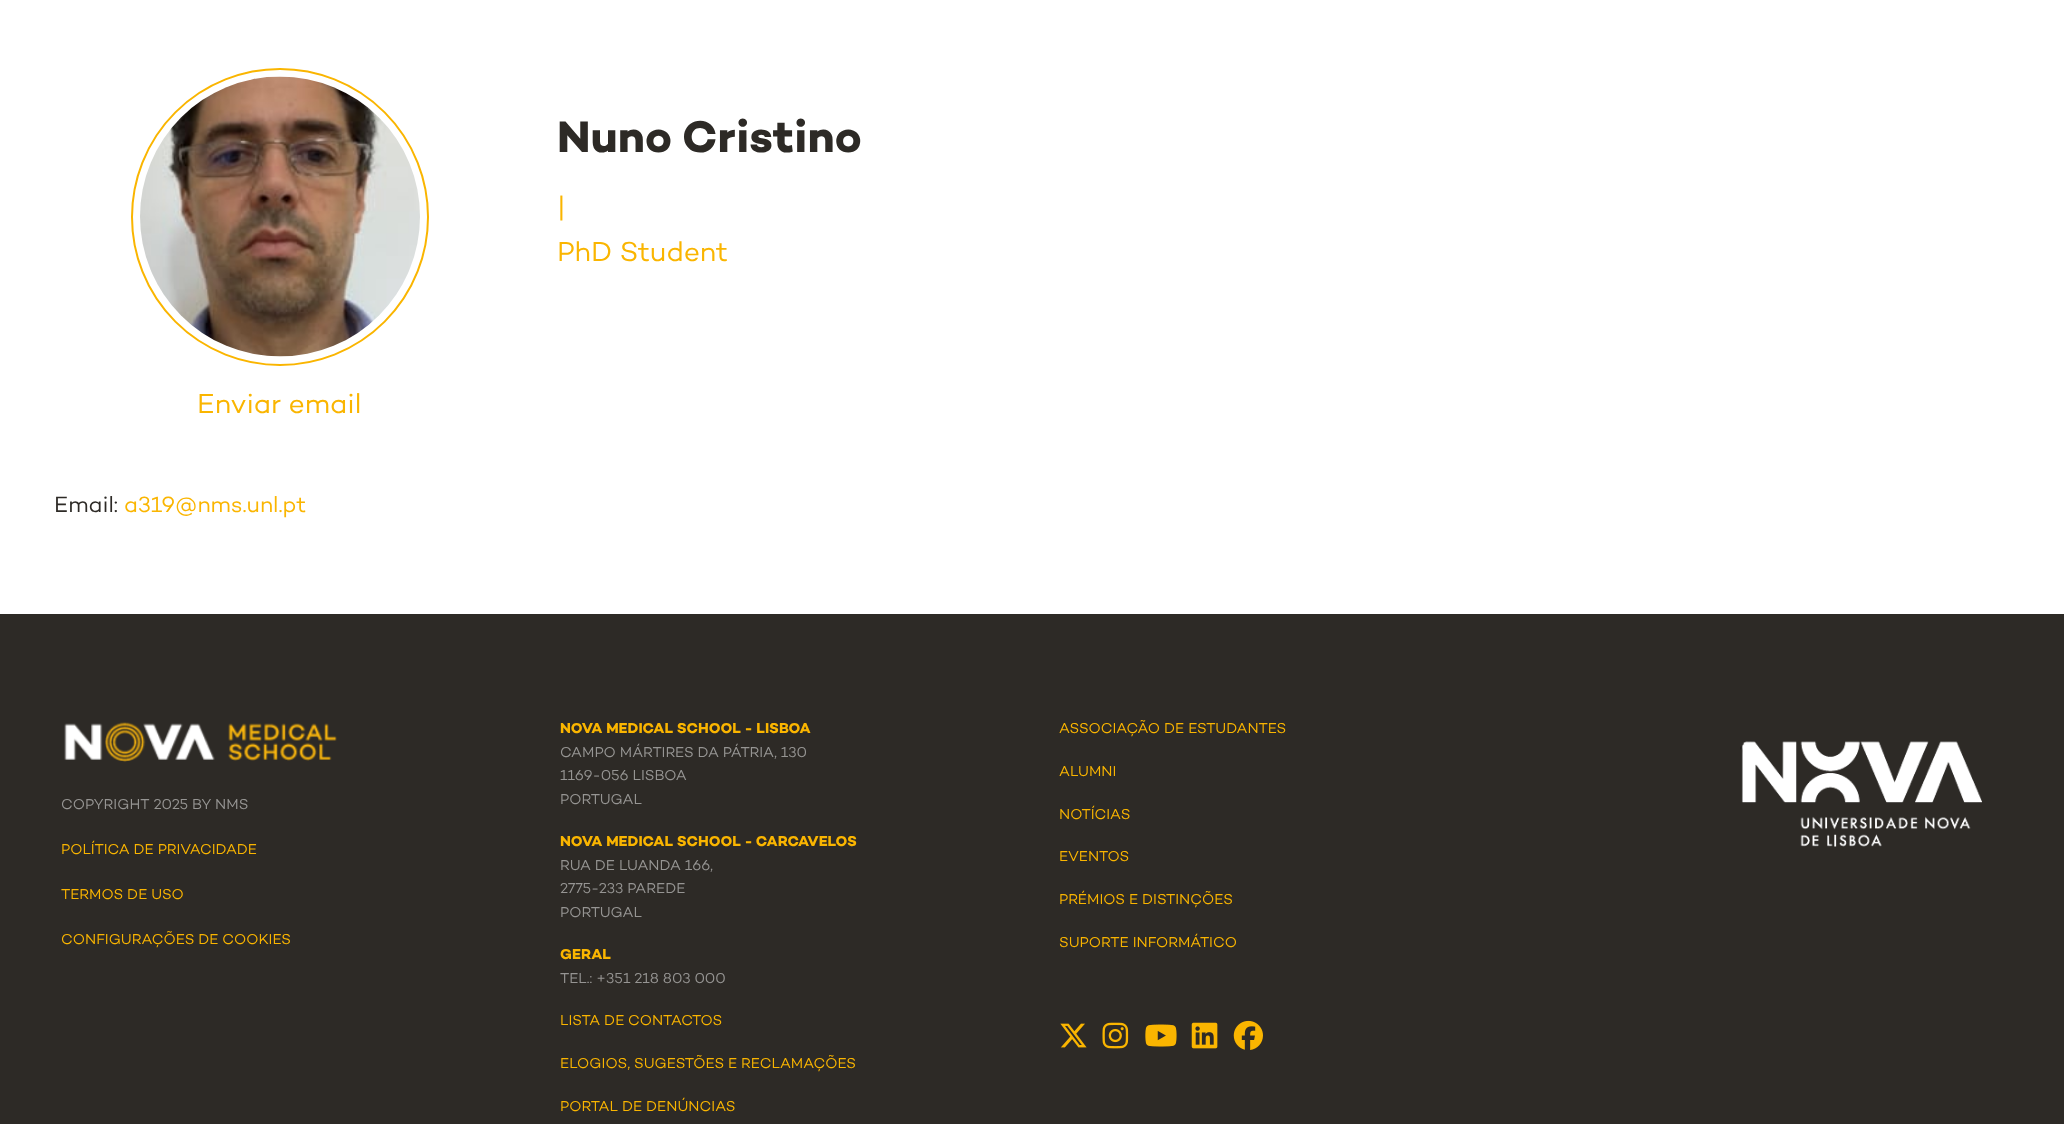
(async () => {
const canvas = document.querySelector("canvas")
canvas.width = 2064
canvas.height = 1124
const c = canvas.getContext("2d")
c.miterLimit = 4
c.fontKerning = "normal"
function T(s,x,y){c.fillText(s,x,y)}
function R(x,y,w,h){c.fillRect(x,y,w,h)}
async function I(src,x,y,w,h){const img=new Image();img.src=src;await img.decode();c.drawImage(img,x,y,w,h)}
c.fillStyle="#fff"
R(0,0,2064,1124)
c.font="bold 45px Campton"
c.fillStyle="#2d2a26"
T("Nuno Cristino",557,152)
c.font="28px Campton"
c.fillStyle="#fab500"
T("|",557,216)
T("PhD Student",557,261)
c.beginPath()
c.arc(280,217,148,0,7)
c.strokeStyle="#fab500"
c.lineWidth=2
c.stroke()
await I("1.png",140,76,280,281)
T("Enviar email",197,413)
c.font="22.5px Campton"
c.fillStyle="#2d2a26"
T("Email:",54,512)
c.fillStyle="#fab500"
T("a319@nms.unl.pt",124,512)
c.fillStyle="#2d2a26"
R(0,614,2064,510)
await I("2.png",64,722,273,40)
c.font="14.6px Campton"
c.fillStyle="#969593"
T("COPYRIGHT 2025 BY NMS",61,809)
c.fillStyle="#fab500"
T("POLÍTICA DE PRIVACIDADE",61,854)
T("TERMOS DE USO",61,899)
T("CONFIGURAÇÕES DE COOKIES",61,944)
c.font="bold 14.6px Campton"
T("NOVA MEDICAL SCHOOL - LISBOA",560,733)
c.font="14.6px Campton"
c.fillStyle="#969593"
T("CAMPO MÁRTIRES DA PÁTRIA, 130",560,757)
T("1169-056 LISBOA",560,780)
T("PORTUGAL",560,804)
c.font="bold 14.6px Campton"
c.fillStyle="#fab500"
T("NOVA MEDICAL SCHOOL - CARCAVELOS",560,846)
c.font="14.6px Campton"
c.fillStyle="#969593"
T("RUA DE LUANDA 166,",560,870)
T("2775-233 PAREDE",560,893)
T("PORTUGAL",560,917)
c.font="bold 14.6px Campton"
c.fillStyle="#fab500"
T("GERAL",560,959)
c.font="14.6px Campton"
c.fillStyle="#969593"
T("TEL.: +351 218 803 000",560,983)
c.fillStyle="#fab500"
T("LISTA DE CONTACTOS",560,1025)
T("ELOGIOS, SUGESTÕES E RECLAMAÇÕES",560,1068)
T("PORTAL DE DENÚNCIAS",560,1111)
T("ASSOCIAÇÃO DE ESTUDANTES",1059,733)
T("ALUMNI",1059,776)
T("NOTÍCIAS",1059,819)
T("EVENTOS",1059,861)
T("PRÉMIOS E DISTINÇÕES",1059,904)
T("SUPORTE INFORMÁTICO",1059,947)
await I("3.png",1060,1023,27,25)
await I("4.png",1102,1022,27,27)
await I("5.png",1145,1024,32,23)
await I("6.png",1191,1022,27,27)
await I("7.png",1233,1020,30,30)
await I("8.png",1740,741,242,106)
})()
